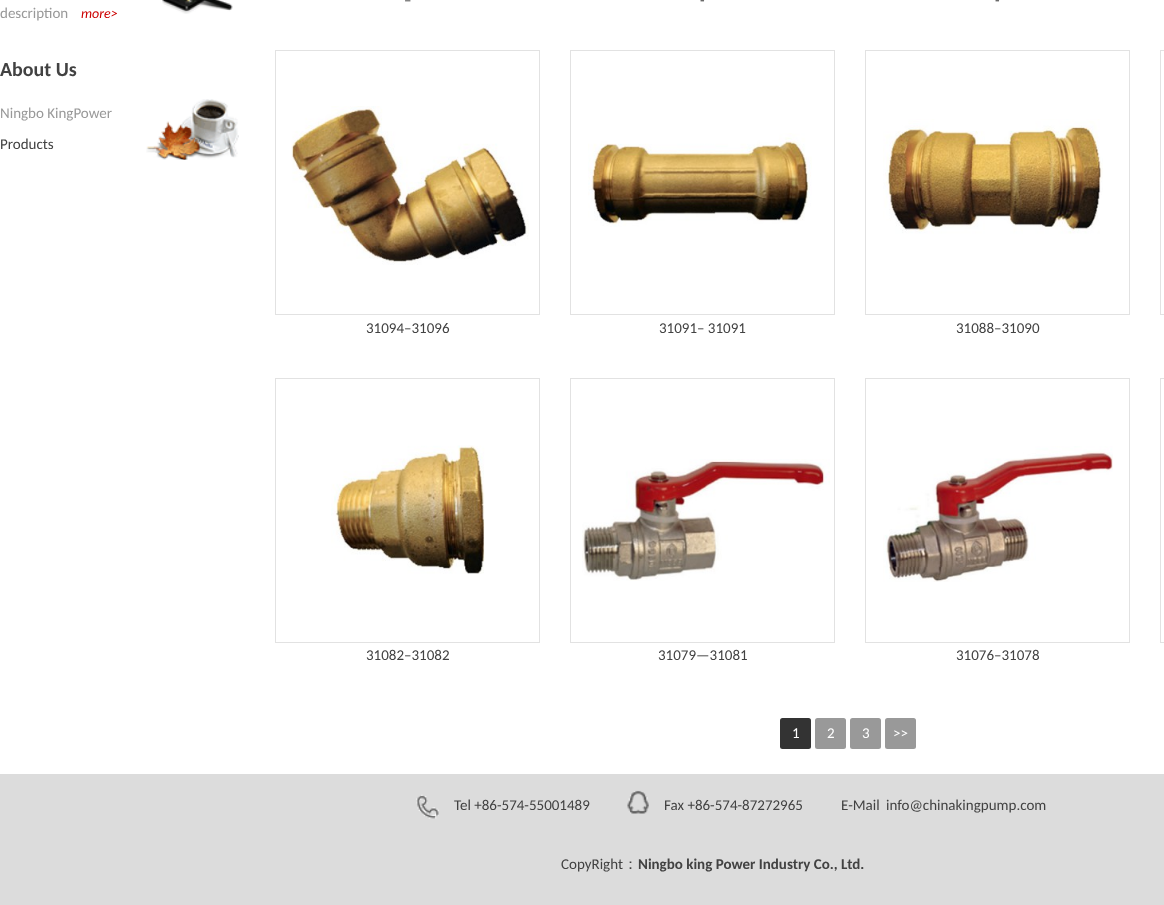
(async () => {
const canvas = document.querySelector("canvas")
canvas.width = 1164
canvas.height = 905
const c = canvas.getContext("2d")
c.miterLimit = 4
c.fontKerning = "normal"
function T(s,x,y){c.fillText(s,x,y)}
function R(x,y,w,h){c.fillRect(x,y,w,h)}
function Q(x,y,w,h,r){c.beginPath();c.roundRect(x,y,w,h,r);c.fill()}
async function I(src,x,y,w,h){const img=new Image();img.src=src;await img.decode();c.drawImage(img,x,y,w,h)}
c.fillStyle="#fff"
R(0,0,1164,905)
await I("1.png",162,0,71,14)
c.font="15px Carlito"
c.fillStyle="#999"
T("description",0,18)
c.font="italic 14px Carlito"
c.fillStyle="#c00"
T("more>",81,18)
c.font="bold 20px Carlito"
c.fillStyle="#424242"
T("About Us",0,76)
await I("2.png",146,99,93,61)
c.font="15px Carlito"
c.fillStyle="#999"
T("Ningbo KingPower",0,118)
c.fillStyle="#424242"
T("Products",0,149)
T("–",404,5)
T("-",700,5)
T("-",995,5)
c.strokeStyle="#e2e2e2"
c.strokeRect(1160.5,50.5,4,264)
c.strokeRect(275.5,50.5,264,264)
await I("3.png",291,106,238,159)
T("31094–31096",366,333)
c.strokeRect(570.5,50.5,264,264)
await I("4.png",588,133,224,94)
T("31091– 31091",659,333)
c.strokeRect(865.5,50.5,264,264)
await I("5.png",883,119,220,115)
T("31088–31090",956,333)
c.strokeRect(1160.5,378.5,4,264)
c.strokeRect(275.5,378.5,264,264)
await I("6.png",331,445,154,129)
T("31082–31082",366,660)
c.strokeRect(570.5,378.5,264,264)
await I("7.png",582,459,248,122)
T("31079—31081",658,660)
c.strokeRect(865.5,378.5,264,264)
await I("8.png",883,446,230,136)
T("31076–31078",956,660)
c.fillStyle="#333"
Q(780,718,31,31,2.5)
c.fillStyle="#fff"
T("1",792,738)
c.fillStyle="#999"
Q(815,718,31,31,2.5)
c.fillStyle="#fff"
T("2",827,738)
c.fillStyle="#999"
Q(850,718,31,31,2.5)
c.fillStyle="#fff"
T("3",862,738)
c.fillStyle="#999"
Q(885,718,31,31,2.5)
c.fillStyle="#fff"
T(">>",893,738)
c.fillStyle="#dcdcdc"
R(0,774,1164,131)
await I("9.png",416,794,23,25)
c.fillStyle="#424242"
T("Tel +86-574-55001489",454,810)
await I("10.png",627,790,22,24)
T("Fax +86-574-87272965",664,810)
T("E-Mail",841,810)
T("info@chinakingpump.com",886,810)
T("CopyRight",561,869)
c.font="500 15px WenQuanYi Zen Hei"
T("：",623,869)
c.font="bold 15px Carlito"
T("Ningbo king Power Industry Co., Ltd.",638,869)
})()
